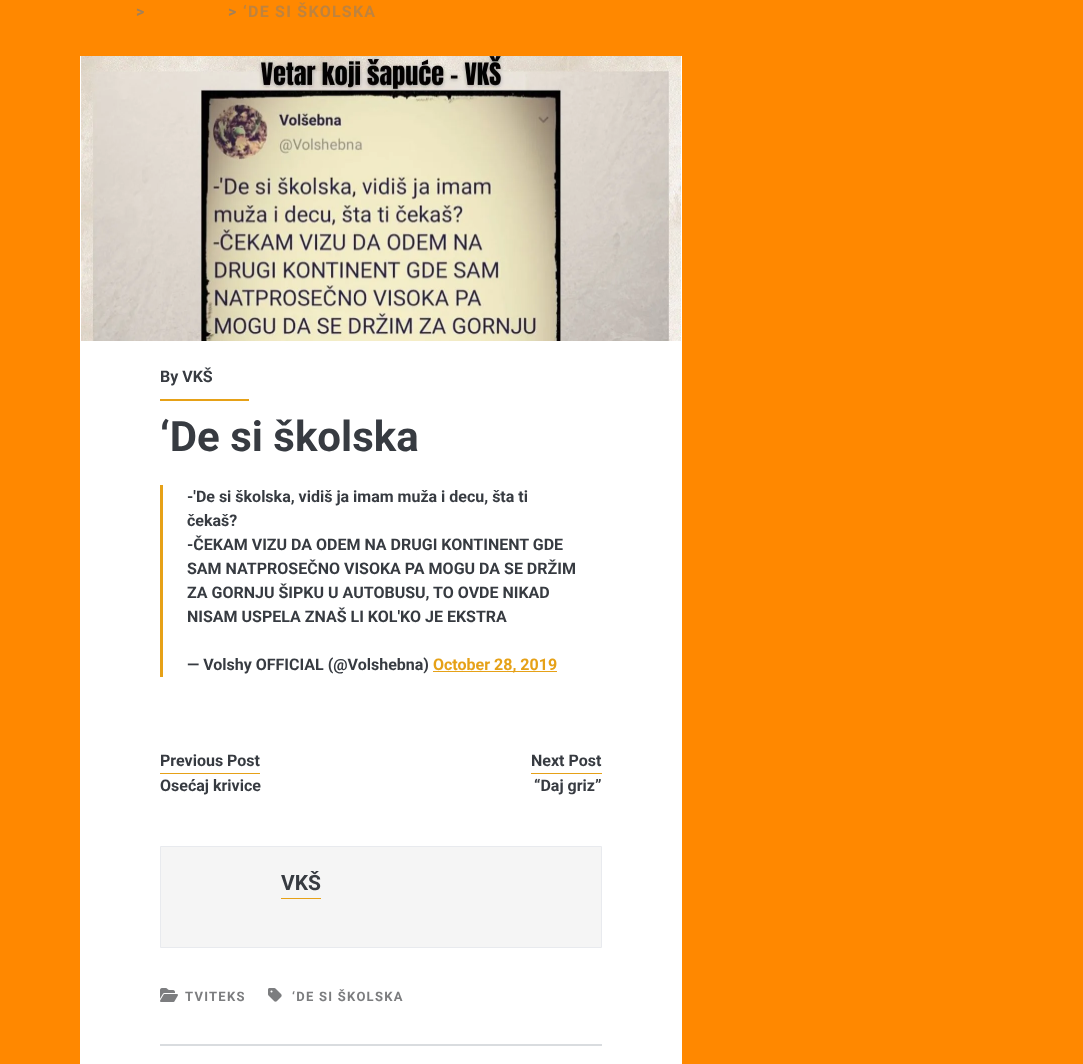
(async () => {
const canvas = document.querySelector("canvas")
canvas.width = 1083
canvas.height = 1064
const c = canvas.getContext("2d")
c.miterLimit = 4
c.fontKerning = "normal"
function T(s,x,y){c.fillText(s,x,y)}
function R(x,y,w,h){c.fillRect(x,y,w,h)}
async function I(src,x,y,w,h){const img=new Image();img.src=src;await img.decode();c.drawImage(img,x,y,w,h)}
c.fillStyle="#f80"
R(0,0,1083,1064)
c.letterSpacing="1.25px"
c.font="bold 16px Roboto"
c.fillStyle="#a38059"
T(">",136,17)
T(">",228,17)
c.fillStyle="#bf833e"
T("‘DE SI ŠKOLSKA",243,17)
c.fillStyle="#fff"
R(80,56,602,1008)
await I("1.png",81,56,600,285)
c.letterSpacing="0px"
c.fillStyle="#373b41"
T("By VKŠ",160,382)
c.fillStyle="#e6a117"
R(160,399,89,2)
c.font="bold 42px Roboto"
c.fillStyle="#373b41"
T("‘De si školska",160,451)
c.fillStyle="#e6a117"
R(160,485,3,192)
c.font="bold 16px Roboto"
c.fillStyle="#373b41"
T("-'De si školska, vidiš ja imam muža i decu, šta ti",187,502)
T("čekaš?",187,526)
T("-ČEKAM VIZU DA ODEM NA DRUGI KONTINENT GDE",187,550)
T("SAM NATPROSEČNO VISOKA PA MOGU DA SE DRŽIM",187,574)
T("ZA GORNJU ŠIPKU U AUTOBUSU, TO OVDE NIKAD",187,598)
T("NISAM USPELA ZNAŠ LI KOL'KO JE EKSTRA",187,622)
T("— Volshy OFFICIAL (@Volshebna)",187,670)
c.fillStyle="#e6a117"
R(433,671,124,1)
T("October 28, 2019",433,670)
R(160,773,100,1)
c.fillStyle="#373b41"
T("Previous Post",160,766)
T("Osećaj krivice",160,791)
c.fillStyle="#e6a117"
R(531,773,71,1)
c.fillStyle="#373b41"
T("Next Post",531,766)
T("“Daj griz”",534,791)
c.fillStyle="#f5f5f5"
c.beginPath()
c.rect(160.5,846.5,441,101)
c.fill()
c.strokeStyle="#e8eaee"
c.stroke()
c.fillStyle="#e6a117"
R(281,898,40,1)
c.font="bold 21px Roboto"
c.fillStyle="#373b41"
T("VKŠ",281,890)
await I("2.png",160,988,18,14)
c.letterSpacing="1.25px"
c.font="bold 13px Roboto"
c.fillStyle="#7c7d7f"
T("TVITEKS",185,1001)
await I("3.png",268,988,14,14)
T("‘DE SI ŠKOLSKA",292,1001)
c.fillStyle="#d9dcdf"
R(160,1044,442,2)
})()
